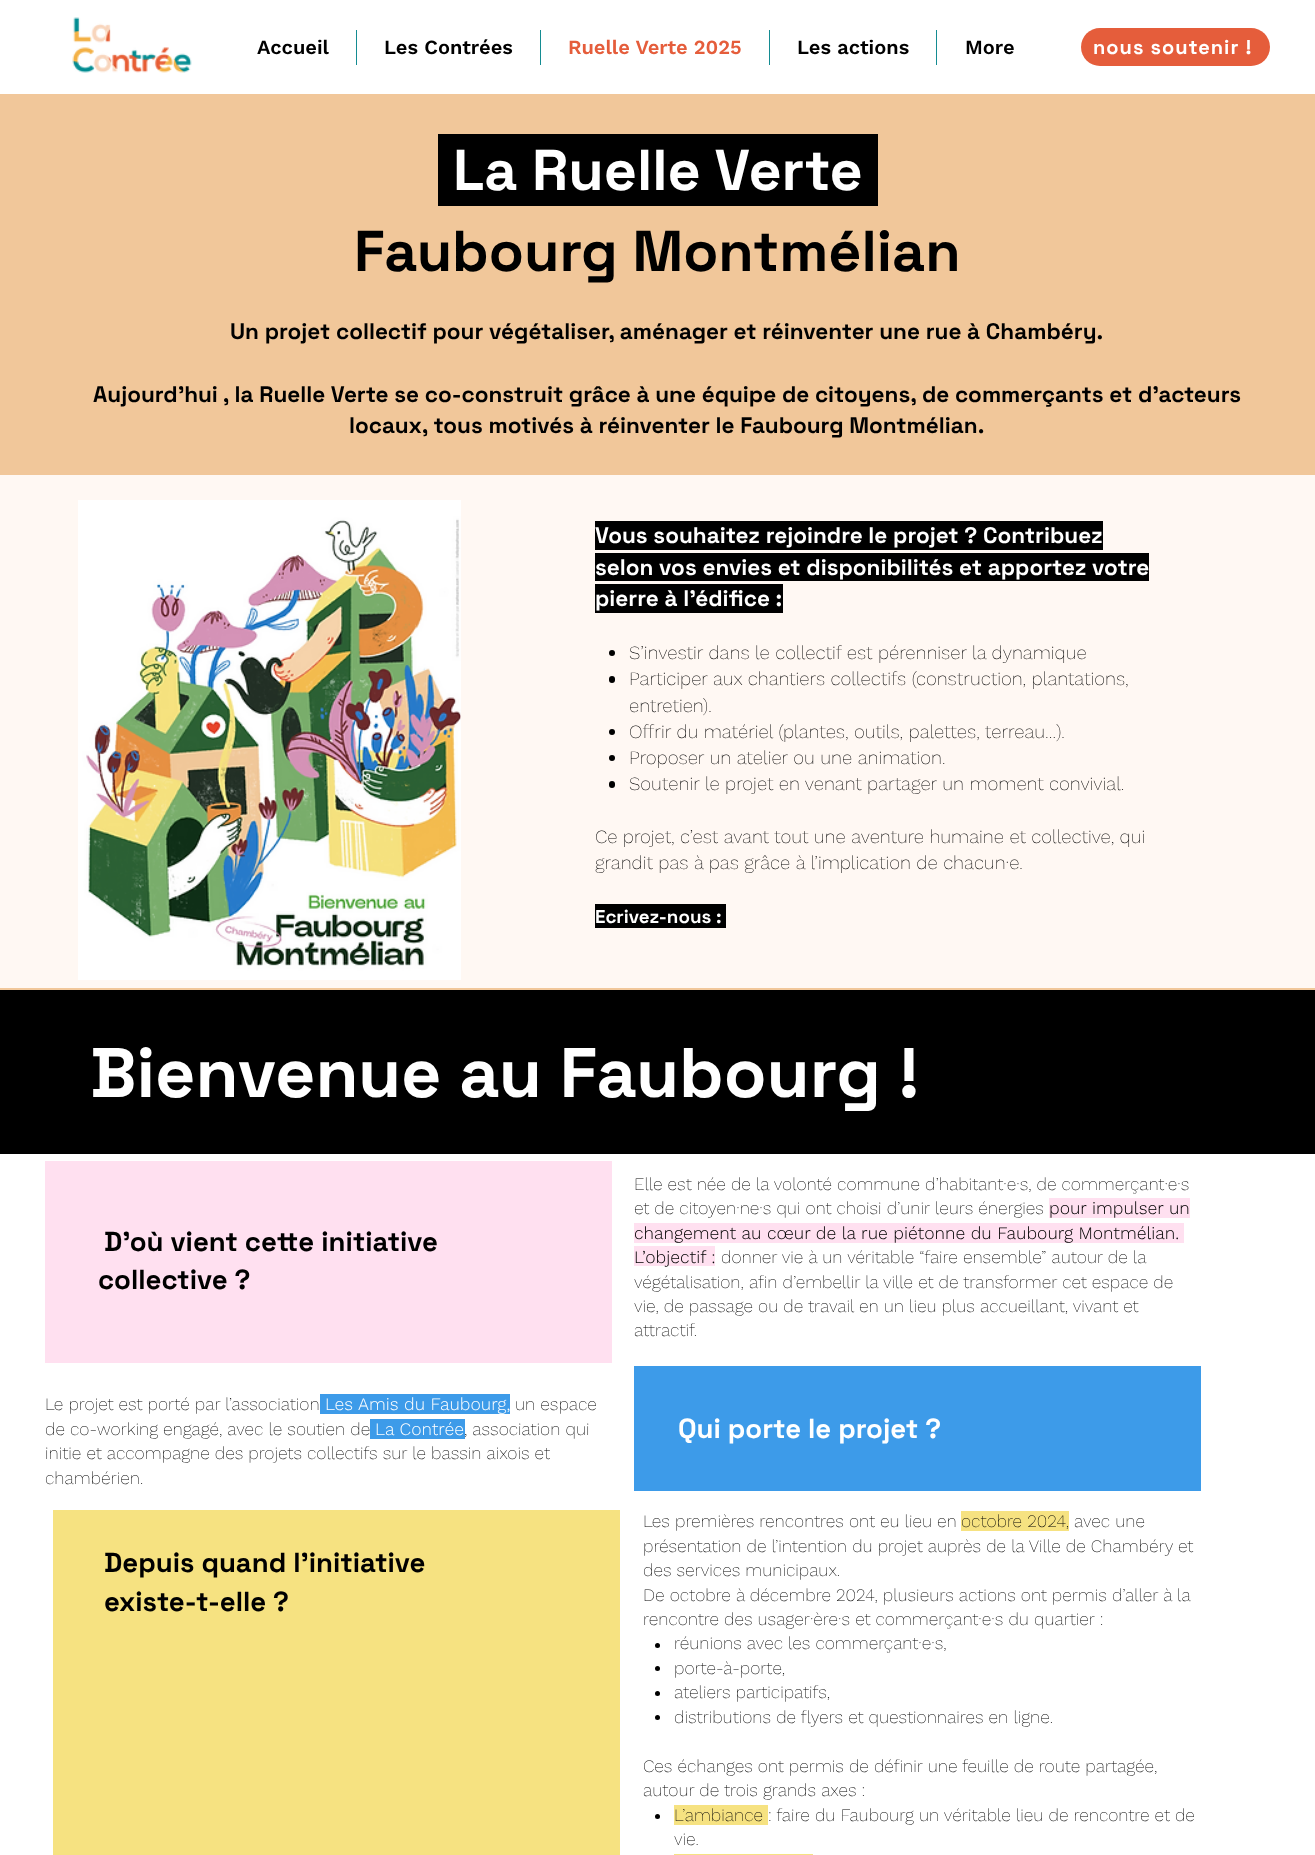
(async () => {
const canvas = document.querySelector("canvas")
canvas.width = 1315
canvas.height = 1855
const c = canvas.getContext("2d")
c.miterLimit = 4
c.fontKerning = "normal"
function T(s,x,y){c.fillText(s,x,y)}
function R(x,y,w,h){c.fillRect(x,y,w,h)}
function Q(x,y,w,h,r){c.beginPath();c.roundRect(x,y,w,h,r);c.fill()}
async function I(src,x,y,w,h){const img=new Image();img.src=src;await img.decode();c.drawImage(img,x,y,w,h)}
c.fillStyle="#fff"
R(0,0,1315,1855)
await I("1.png",72,17,120,56)
c.font="600 20px Work Sans"
c.fillStyle="#000"
T("Accueil",257,54)
c.fillStyle="#148c92"
R(356,30,1,35)
c.fillStyle="#000"
T("Les Contrées",384,54)
c.fillStyle="#148c92"
R(540,30,1,35)
c.fillStyle="#e55d3b"
T("Ruelle Verte 2025",568,54)
c.fillStyle="#148c92"
R(769,30,1,35)
c.fillStyle="#000"
T("Les actions",797,54)
c.fillStyle="#148c92"
R(936,30,1,35)
c.fillStyle="#000"
T("More",965,54)
c.fillStyle="#e55d3b"
Q(1081,28,189,38,19)
c.letterSpacing="1px"
c.font="bold 20px Space Grotesk"
c.fillStyle="#fff"
T("nous soutenir !",1093,54)
c.fillStyle="#f1c79a"
R(0,94,1315,896)
c.fillStyle="#000"
R(438,134,440,72)
c.letterSpacing="0px"
c.font="bold 57.5px Space Grotesk"
c.fillStyle="#fff"
T("La Ruelle Verte",453,190)
c.fillStyle="#000"
T("Faubourg Montmélian",354,271)
c.font="bold 22.5px Space Grotesk"
T("Un projet collectif pour végétaliser, aménager et réinventer une rue à Chambéry.",230,339)
T("Aujourd’hui , la Ruelle Verte se co-construit grâce à une équipe de citoyens, de commerçants et d’acteurs",93,402)
T("locaux, tous motivés à réinventer le Faubourg Montmélian.",349,433)
c.fillStyle="#fff8f3"
R(0,475,1315,513)
await I("2.png",78,500,383,480)
c.fillStyle="#000"
R(595,521,508,29)
c.fillStyle="#fff"
T("Vous souhaitez rejoindre le projet ? Contribuez",595,543)
c.fillStyle="#000"
R(595,553,554,28)
c.fillStyle="#fff"
T("selon vos envies et disponibilités et apportez votre",595,575)
c.fillStyle="#000"
R(595,584,188,29)
c.fillStyle="#fff"
T("pierre à l’édifice :",595,606)
c.fillStyle="#000"
c.beginPath()
c.arc(612,653,3,0,7)
c.fill()
c.font="200 18.75px Work Sans"
T("S’investir dans le collectif est pérenniser la dynamique",629,659)
Q(609,676,6,7,3)
T("Participer aux chantiers collectifs (construction, plantations,",629,685)
T("entretien).",629,712)
c.beginPath()
c.arc(612,732,3,0,7)
c.fill()
T("Offrir du matériel (plantes, outils, palettes, terreau…).",629,738)
c.beginPath()
c.arc(612,758,3,0,7)
c.fill()
T("Proposer un atelier ou une animation.",629,764)
Q(609,781,6,7,3)
T("Soutenir le projet en venant partager un moment convivial.",629,790)
T("Ce projet, c’est avant tout une aventure humaine et collective, qui",595,843)
T("grandit pas à pas grâce à l’implication de chacun·e.",595,869)
R(595,904,131,24)
c.font="bold 18.75px Space Grotesk"
c.fillStyle="#fff"
T("Ecrivez-nous :",595,923)
c.fillStyle="#000"
R(0,990,1315,164)
c.font="bold 70px Space Grotesk"
c.fillStyle="#fff"
T("Bienvenue au Faubourg !",90,1097)
c.fillStyle="#ffe0f0"
R(45,1161,567,202)
c.font="200 17.5px Work Sans"
c.fillStyle="#000"
T("Elle est née de la volonté commune d’habitant·e·s, de commerçant·e·s",634,1190)
T("et de citoyen·ne·s qui ont choisi d’unir leurs énergies",634,1214)
c.fillStyle="#ffe0f0"
R(1049,1198,141,20)
c.font="300 17.5px Work Sans"
c.fillStyle="#000"
T("pour impulser un",1049,1214)
c.fillStyle="#ffe0f0"
R(634,1223,550,20)
c.fillStyle="#000"
T("changement au cœur de la rue piétonne du Faubourg Montmélian.",634,1239)
c.fillStyle="#ffe0f0"
R(634,1246,81,20)
c.fillStyle="#000"
T("L’objectif :",634,1263)
c.font="200 17.5px Work Sans"
T("donner vie à un véritable “faire ensemble” autour de la",721,1263)
T("végétalisation, afin d’embellir la ville et de transformer cet espace de",634,1288)
T("vie, de passage ou de travail en un lieu plus accueillant, vivant et",634,1312)
T("attractif.",634,1336)
c.font="bold 27.5px Space Grotesk"
T("D’où vient cette initiative",104,1251)
T("collective ?",98,1289)
c.font="200 17.5px Work Sans"
T("Le projet est porté par l’association",45,1410)
c.fillStyle="#3d9be9"
R(320,1394,190,20)
c.font="300 17.5px Work Sans"
c.fillStyle="#fff"
T("Les Amis du Faubourg,",325,1410)
c.font="200 17.5px Work Sans"
c.fillStyle="#000"
T("un espace",515,1410)
T("de co-working engagé, avec le soutien de",45,1435)
c.fillStyle="#3d9be9"
R(370,1419,95,20)
c.font="300 17.5px Work Sans"
c.fillStyle="#fff"
T("La Contrée",375,1435)
c.font="200 17.5px Work Sans"
c.fillStyle="#000"
T(", association qui",464,1435)
T("initie et accompagne des projets collectifs sur le bassin aixois et",45,1459)
T("chambérien.",45,1484)
c.fillStyle="#3d9be9"
R(634,1366,567,125)
c.font="bold 27.5px Space Grotesk"
c.fillStyle="#fff"
T("Qui porte le projet ?",678,1438)
c.fillStyle="#f6e281"
R(53,1510,567,345)
c.font="200 17.5px Work Sans"
c.fillStyle="#000"
T("Les premières rencontres ont eu lieu en",643,1527)
c.fillStyle="#f6e281"
R(961,1511,108,20)
c.fillStyle="#000"
T("octobre 2024, avec une",961,1527)
T("présentation de l’intention du projet auprès de la Ville de Chambéry et",643,1552)
T("des services municipaux.",643,1576)
T("De octobre à décembre 2024, plusieurs actions ont permis d’aller à la",643,1601)
T("rencontre des usager·ère·s et commerçant·e·s du quartier :",643,1625)
c.beginPath()
c.arc(657.5,1645.5,2.5,0,7)
c.fill()
T("réunions avec les commerçant·e·s,",674,1649)
c.beginPath()
c.arc(657.5,1668.5,2.5,0,7)
c.fill()
T("porte-à-porte,",674,1674)
c.beginPath()
c.arc(657.5,1693.5,2.5,0,7)
c.fill()
T("ateliers participatifs,",674,1698)
c.beginPath()
c.arc(657.5,1717.5,2.5,0,7)
c.fill()
T("distributions de flyers et questionnaires en ligne.",674,1723)
T("Ces échanges ont permis de définir une feuille de route partagée,",643,1772)
T("autour de trois grands axes :",643,1796)
c.beginPath()
c.arc(657.5,1816.5,2.5,0,7)
c.fill()
c.fillStyle="#f6e281"
R(674,1805,94,20)
c.fillStyle="#000"
T("L’ambiance : faire du Faubourg un véritable lieu de rencontre et de",674,1821)
T("vie.",674,1845)
c.fillStyle="#f6e281"
R(674,1854,139,1)
c.font="bold 27.5px Space Grotesk"
c.fillStyle="#000"
T("Depuis quand l’initiative",104,1572)
T("existe-t-elle ?",104,1611)
})()
